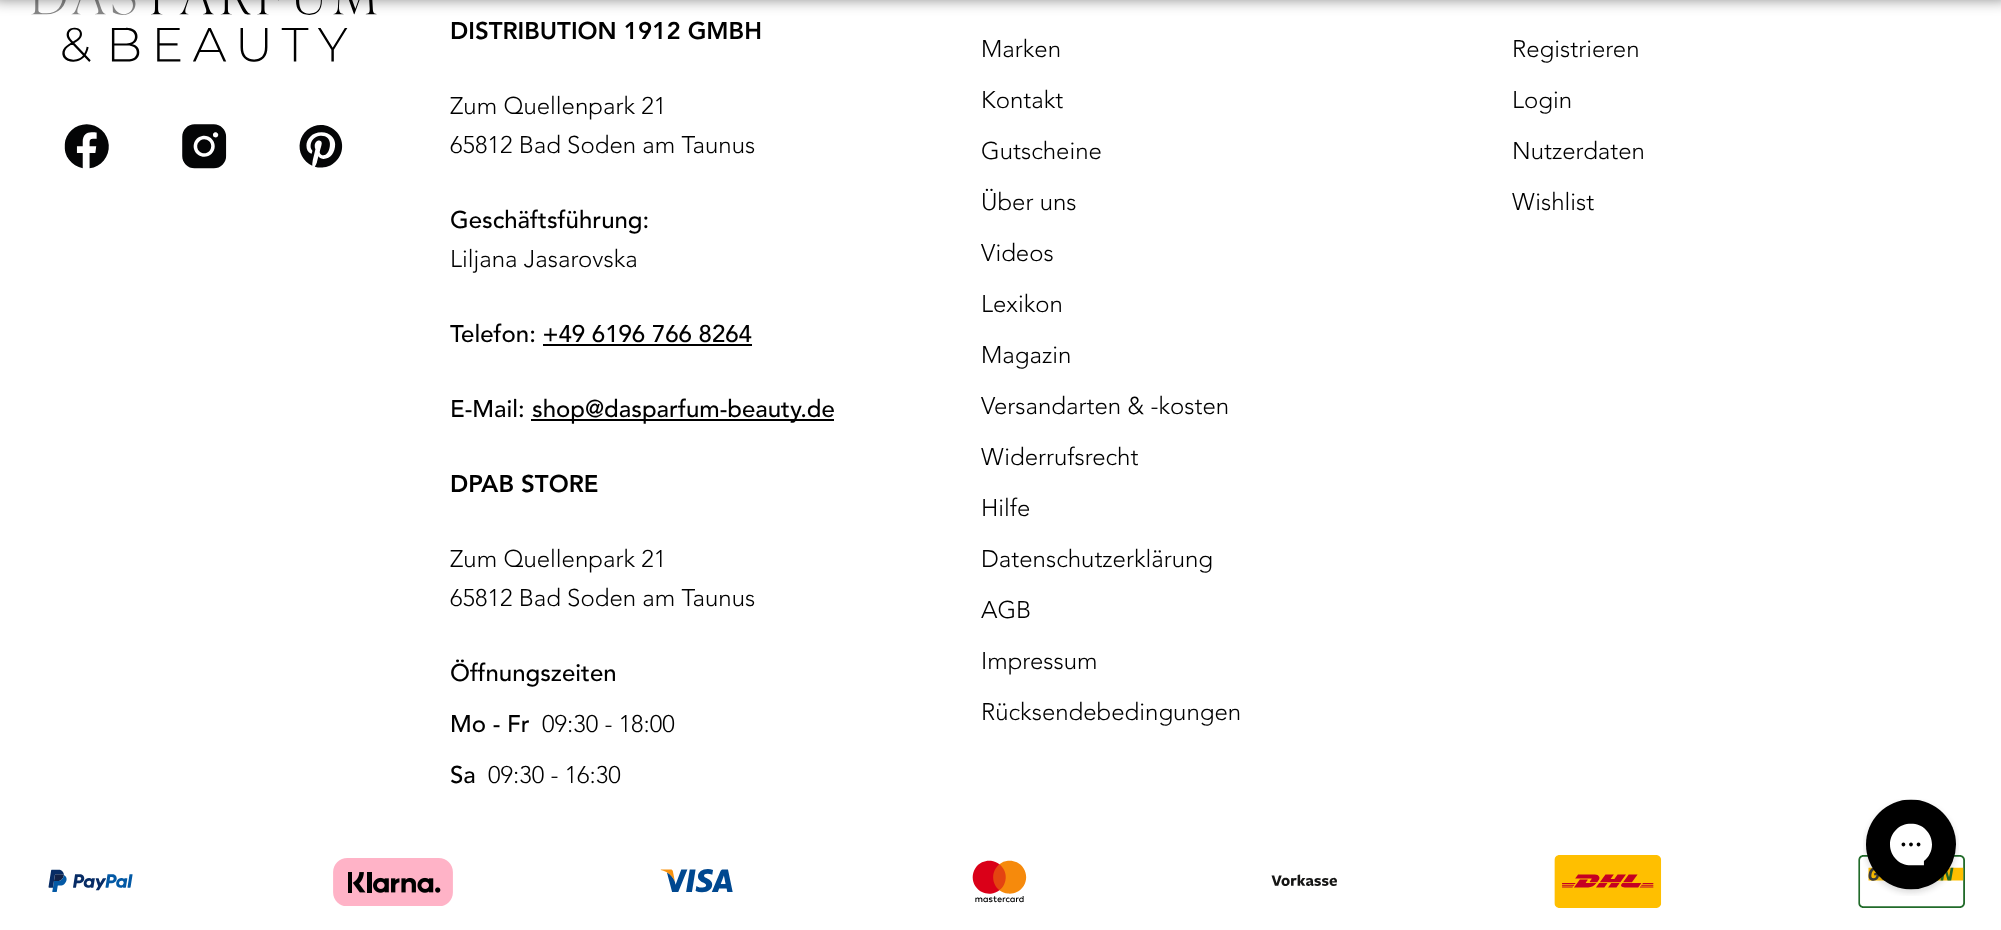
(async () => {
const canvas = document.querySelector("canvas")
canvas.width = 2001
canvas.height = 930
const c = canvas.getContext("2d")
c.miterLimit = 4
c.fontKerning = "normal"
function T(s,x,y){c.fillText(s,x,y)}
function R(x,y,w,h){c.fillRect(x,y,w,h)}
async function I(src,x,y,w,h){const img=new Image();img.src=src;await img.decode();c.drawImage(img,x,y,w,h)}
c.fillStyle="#fff"
R(0,0,2001,930)
await I("1.png",31,0,346,62)
c.fillStyle="#00000080"
c.filter="blur(7.5px)"
c.beginPath()
c.rect(-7,-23,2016,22)
c.fill()
c.filter="none"
await I("2.png",64,124,45,45)
await I("3.png",182,124,45,45)
await I("4.png",299,125,44,43)
c.font="900 24px Avenir"
c.fillStyle="#000"
T("DISTRIBUTION 1912 GMBH",450,39)
c.font="300 24px Avenir"
T("Zum Quellenpark 21",450,114)
T("65812 Bad Soden am Taunus",450,153)
c.font="500 24px Avenir"
T("Geschäftsführung:",450,228)
c.font="300 24px Avenir"
T("Liljana Jasarovska",450,267)
c.font="500 24px Avenir"
T("Telefon: +49 6196 766 8264",450,342)
R(543,344,209,2)
T("E-Mail:",450,417)
R(531,419,303,2)
T("shop@dasparfum-beauty.de",532,417)
c.font="900 24px Avenir"
T("DPAB STORE",450,492)
c.font="300 24px Avenir"
T("Zum Quellenpark 21",450,567)
T("65812 Bad Soden am Taunus",450,606)
c.font="500 24px Avenir"
T("Öffnungszeiten",450,681)
T("Mo - Fr",450,732)
c.font="300 24px Avenir"
T("09:30 - 18:00",542,732)
c.font="500 24px Avenir"
T("Sa",450,783)
c.font="300 24px Avenir"
T("09:30 - 16:30",488,783)
T("Marken",981,57)
T("Kontakt",981,108)
T("Gutscheine",981,159)
T("Über uns",981,210)
T("Videos",981,261)
T("Lexikon",981,312)
T("Magazin",981,363)
T("Versandarten & -kosten",981,414)
T("Widerrufsrecht",981,465)
T("Hilfe",981,516)
T("Datenschutzerklärung",981,567)
T("AGB",981,618)
T("Impressum",981,669)
T("Rücksendebedingungen",981,720)
T("Registrieren",1512,57)
T("Login",1512,108)
T("Nutzerdaten",1512,159)
T("Wishlist",1512,210)
await I("5.png",48,869,85,23)
await I("6.png",333,858,120,48)
await I("7.png",660,869,73,24)
await I("8.png",972,860,55,43)
await I("9.png",1271,874,66,12)
await I("10.png",1554,855,108,53)
await I("11.png",1858,855,107,53)
await I("12.png",1863,799,96,97)
})()
